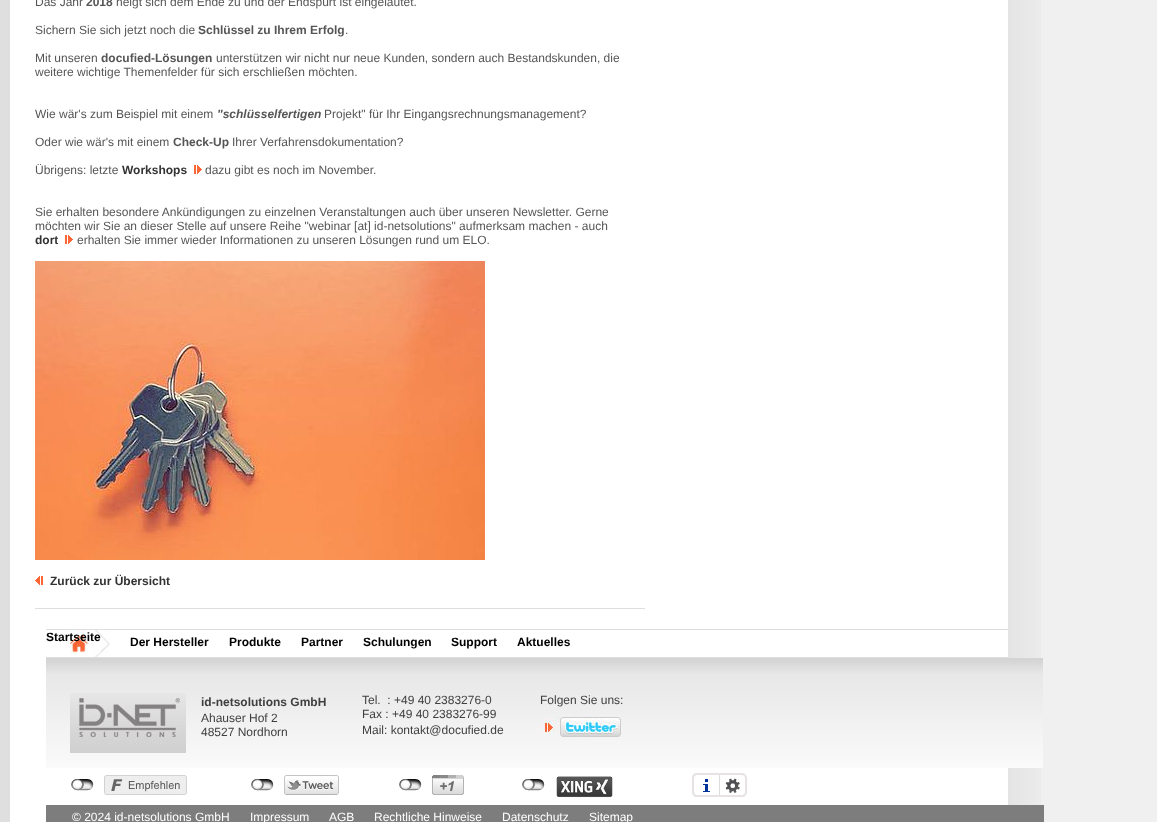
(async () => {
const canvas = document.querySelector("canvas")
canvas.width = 1157
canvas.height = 822
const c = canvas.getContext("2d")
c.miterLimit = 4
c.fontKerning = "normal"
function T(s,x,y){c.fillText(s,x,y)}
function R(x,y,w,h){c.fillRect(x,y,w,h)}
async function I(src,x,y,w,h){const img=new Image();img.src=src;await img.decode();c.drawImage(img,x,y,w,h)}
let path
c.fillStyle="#f0f0f0"
R(0,0,1157,822)
await I("1.png",1008,0,33,805)
c.fillStyle="#fff"
R(10,0,998,822)
c.fillStyle="#dfdfdf"
R(0,0,10,822)
c.fillStyle="#dedede"
R(35,608,610,1)
c.font="12px Liberation Sans"
c.fillStyle="#565656"
T("Das Jahr",35,6)
c.font="bold 12px Liberation Sans"
T("2018",86,6)
c.font="12px Liberation Sans"
T("neigt sich dem Ende zu und der Endspurt ist eingeläutet.",116,6)
T("Sichern Sie sich jetzt noch die",35,34)
c.font="bold 12px Liberation Sans"
T("Schlüssel zu Ihrem Erfolg",198,34)
c.font="12px Liberation Sans"
T(".",345,34)
T("Mit unseren",35,62)
c.font="bold 12px Liberation Sans"
T("docufied-Lösungen",101,62)
c.font="12px Liberation Sans"
T("unterstützen wir nicht nur neue Kunden, sondern auch Bestandskunden, die",216,62)
T("weitere wichtige Themenfelder für sich erschließen möchten.",35,76)
T("Wie wär's zum Beispiel mit einem",35,118)
c.font="italic bold 12px Liberation Sans"
T("\"schlüsselfertigen",217,118)
c.font="12px Liberation Sans"
T("Projekt\" für Ihr Eingangsrechnungsmanagement?",324,118)
T("Oder wie wär's mit einem",35,146)
c.font="bold 12px Liberation Sans"
T("Check-Up",173,146)
c.font="12px Liberation Sans"
T("Ihrer Verfahrensdokumentation?",232,146)
T("Übrigens: letzte",35,174)
c.font="bold 12px Liberation Sans"
c.fillStyle="#333"
T("Workshops",122,174)
await I("2.png",194,165,8,9)
c.font="12px Liberation Sans"
c.fillStyle="#565656"
T("dazu gibt es noch im November.",205,174)
T("Sie erhalten besondere Ankündigungen zu einzelnen Veranstaltungen auch über unseren Newsletter. Gerne",35,216)
T("möchten wir Sie an dieser Stelle auf unsere Reihe \"webinar [at] id-netsolutions\" aufmerksam machen - auch",35,230)
c.font="bold 12px Liberation Sans"
c.fillStyle="#333"
T("dort",35,244)
await I("2.png",65,235,8,9)
c.font="12px Liberation Sans"
c.fillStyle="#565656"
T("erhalten Sie immer wieder Informationen zu unseren Lösungen rund um ELO.",77,244)
await I("3.png",35,261,450,299)
await I("4.png",35,576,8,9)
c.font="bold 12px Liberation Sans"
c.fillStyle="#333"
T("Zurück zur Übersicht",50,585)
c.fillStyle="#dedede"
R(46,629,962,1)
R(46,657,962,1)
await I("5.png",70,630,40,27)
c.fillStyle="#000"
T("Startseite",46,641)
T("Der Hersteller",130,646)
T("Produkte",229,646)
T("Partner",301,646)
T("Schulungen",363,646)
T("Support",451,646)
T("Aktuelles",517,646)
await I("6.png",46,658,997,110)
await I("7.png",70,693,116,60)
c.fillStyle="#404040"
T("id-netsolutions GmbH",201,706)
c.font="12px Liberation Sans"
T("Ahauser Hof 2",201,722)
T("48527 Nordhorn",201,736)
T("Tel.  : +49 40 2383276-0",362,704)
T("Fax : +49 40 2383276-99",362,718)
T("Mail: kontakt@docufied.de",362,734)
T("Folgen Sie uns:",540,704)
await I("8.png",540,717,81,20)
await I("9.png",71,779,23,12)
await I("10.png",104,775,83,20)
await I("9.png",251,779,23,12)
await I("11.png",284,775,55,20)
await I("9.png",399,779,23,12)
await I("12.png",432,775,32,20)
await I("9.png",522,779,23,12)
await I("13.png",556,776,57,22)
await I("14.png",703,779,7,13)
c.fillStyle="#e7e3e3"
path = new Path2D("M697 773h22v24h-22c-3 0-5-2-5-5v-14c0-3 2-5 5-5zm0 2h22v20h-22c-1.5 0-3-1.5-3-3v-14c0-1.5 1.5-3 3-3z")
c.fill(path,"evenodd")
await I("15.png",725,778,15,15)
path = new Path2D("M719 773l1 2h22c1 0 1.5 .5 2 1l1.5-1.5c-.5-1-2-1.5-3.5-1.5z")
c.fill(path)
path = new Path2D("M747 792v-14c0-1.5-.5-3-1.5-3.5l-1.5 1.5c.5 .5 1 1 1 2v14c0 1-.5 1.5-1 2l1.5 1.5c1-.5 1.5-2 1.5-3.5z")
c.fill(path)
path = new Path2D("M742 797c1.5 0 3-.5 3.5-1.5l-1.5-1.5c-.5 .5-1 1-2 1h-22l-1 2z")
c.fill(path)
c.fillStyle="#ddd"
path = new Path2D("M719 773v24l1-2v-20z")
c.fill(path)
c.fillStyle="#7d7d7d"
R(46,805,998,17)
c.fillStyle="#fff"
T("© 2024 id-netsolutions GmbH",72,821)
T("Impressum",250,821)
T("AGB",329,821)
T("Rechtliche Hinweise",374,821)
T("Datenschutz",502,821)
T("Sitemap",589,821)
})()
